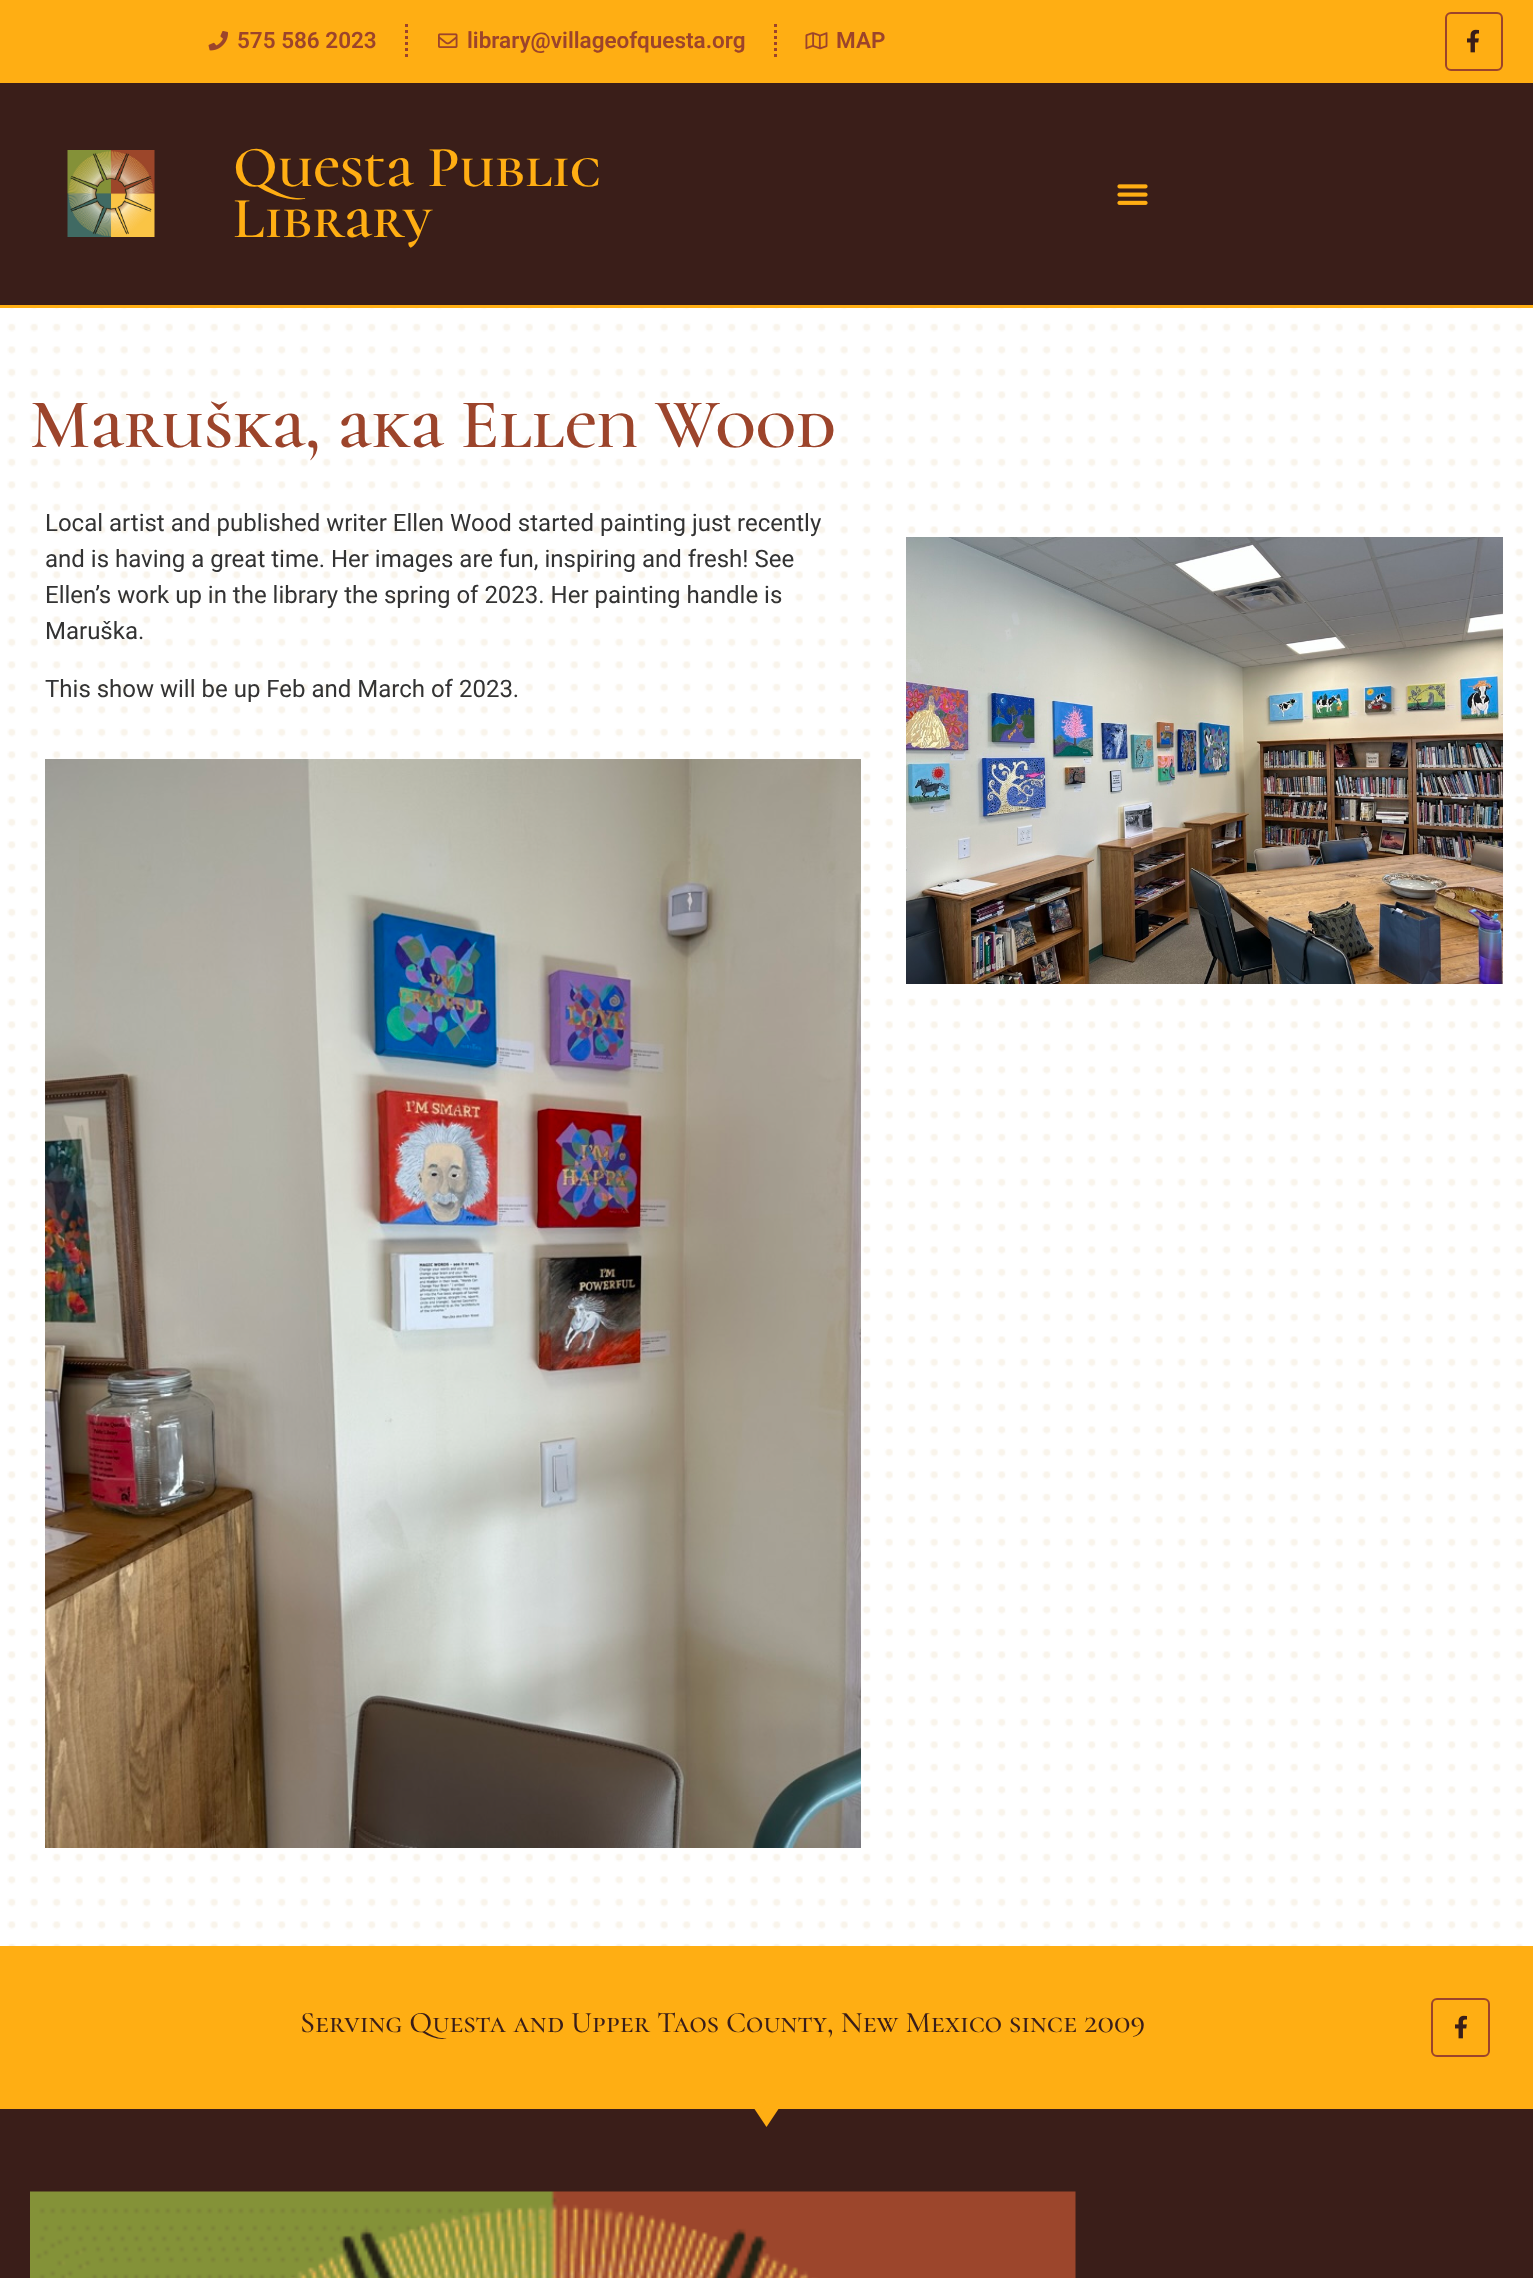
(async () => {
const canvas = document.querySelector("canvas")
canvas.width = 1533
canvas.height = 2278
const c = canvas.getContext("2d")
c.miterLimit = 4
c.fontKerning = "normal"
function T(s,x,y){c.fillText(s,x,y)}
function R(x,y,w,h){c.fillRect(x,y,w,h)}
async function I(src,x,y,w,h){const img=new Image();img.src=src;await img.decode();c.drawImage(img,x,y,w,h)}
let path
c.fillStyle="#fff"
R(0,0,1533,2278)
await I("1.png",7,308,1516,1638)
c.fillStyle="#ffae13"
R(0,0,1533,83)
await I("2.png",208,31,20,20)
c.font="600 22.5px Roboto"
c.fillStyle="#9c442b"
T("575 586 2023",237,48)
path = new Path2D("M406.5 24v34.5")
c.strokeStyle="#9c442b"
c.lineWidth=3
c.setLineDash([3,3])
c.stroke(path)
await I("3.png",438,33,20,15)
T("library@villageofquesta.org",467,48)
path = new Path2D("M775.5 24v34.5")
c.stroke(path)
await I("4.png",805,32,23,18)
T("MAP",836,48)
c.beginPath()
c.roundRect(1446,13,56,57,5)
c.lineWidth=2
c.setLineDash([])
c.stroke()
await I("5.png",1467,29,12,24)
c.fillStyle="#3a1e19"
R(0,83,1533,222)
c.fillStyle="#ffae13"
R(0,305,1533,3)
await I("6.png",67,150,88,87)
c.font="600 58.5px Cormorant Unicase"
T("Questa Public",233,186)
T("Library",233,237)
await I("7.png",1117,184,31,21)
c.font="600 70.5px Cormorant Unicase"
c.fillStyle="#9c442b"
T("Maruška, aka Ellen Wood",30,447)
c.font="24px Roboto"
c.fillStyle="#333"
T("Local artist and published writer Ellen Wood started painting just recently",45,531)
T("and is having a great time. Her images are fun, inspiring and fresh! See",45,567)
T("Ellen’s work up in the library the spring of 2023. Her painting handle is",45,603)
T("Maruška.",45,639)
T("This show will be up Feb and March of 2023.",45,697)
await I("8.png",45,759,816,1089)
await I("9.png",906,537,597,447)
c.fillStyle="#ffae13"
R(0,1946,1533,163)
c.font="500 30px Cormorant SC"
c.fillStyle="#3a1e19"
T("Serving Questa and Upper Taos County, New Mexico since 2009",300,2032)
c.beginPath()
c.roundRect(1432,1999,57,57,5)
c.stroke()
await I("5.png",1455,2015,12,24)
R(0,2109,1533,169)
c.save()
c.beginPath()
c.rect(306,2108,923,19)
c.clip()
c.fillStyle="#ffae13"
path = new Path2D("M766.5 2127l-13-19.5h26z")
c.fill(path)
c.restore()
await I("10.png",30,2191,1046,87)
})()
